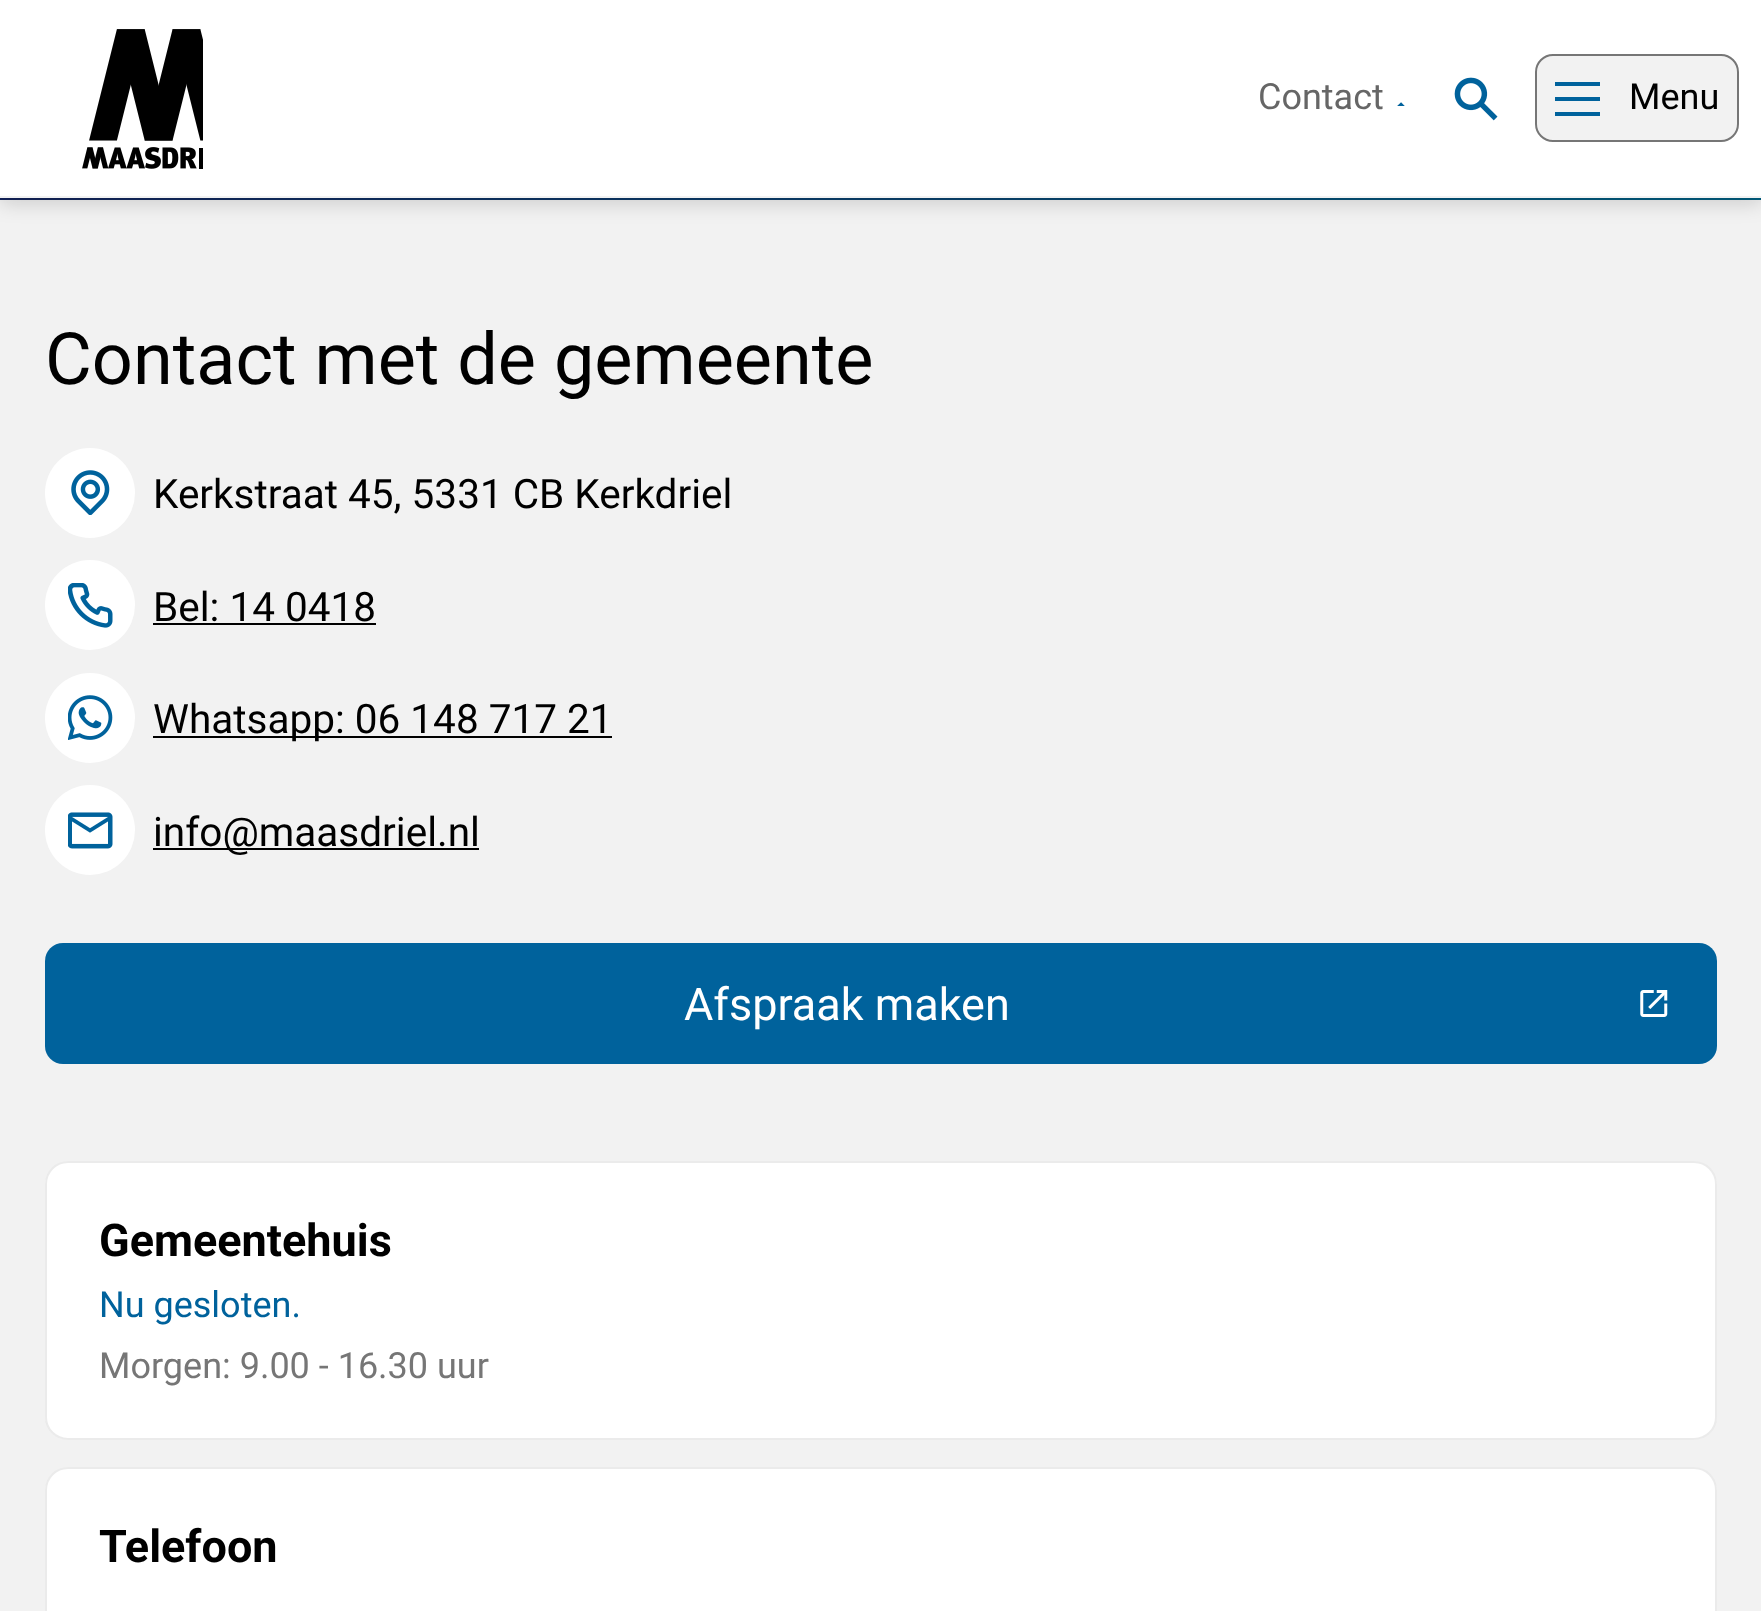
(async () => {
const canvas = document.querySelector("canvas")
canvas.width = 1761
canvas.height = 1611
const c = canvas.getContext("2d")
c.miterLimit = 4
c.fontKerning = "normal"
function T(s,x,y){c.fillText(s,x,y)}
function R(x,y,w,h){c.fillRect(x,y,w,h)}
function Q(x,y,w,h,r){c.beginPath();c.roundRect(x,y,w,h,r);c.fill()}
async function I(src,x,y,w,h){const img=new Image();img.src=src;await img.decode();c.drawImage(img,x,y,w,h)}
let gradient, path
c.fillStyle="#f2f2f2"
R(0,0,1761,1611)
gradient = c.createLinearGradient(0,191,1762,191)
gradient.addColorStop(0,"#13235b")
gradient.addColorStop(1,"#005f81")
c.fillStyle = gradient
R(0,198,1761,2)
c.fillStyle="#00000029"
c.filter="blur(10px)"
c.beginPath()
c.rect(0,5,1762,198)
c.fill()
c.filter="none"
c.fillStyle="#fff"
R(0,0,1761,196)
c.fillStyle="#f2f2f2"
R(0,196,1761,2)
await I("1.png",82,29,121,140)
c.font="36px Roboto"
c.fillStyle="#666"
T("Contact",1258,109)
c.save()
c.beginPath()
c.rect(1393,90,25,16)
c.clip()
path = new Path2D("M1431 106.5l-15 15.5l-15-15.5")
c.strokeStyle="#00629c"
c.lineWidth=6.1
c.lineCap="square"
c.stroke(path)
c.restore()
await I("2.png",1454,77,44,44)
c.fillStyle="#f2f2f2"
c.beginPath()
c.roundRect(1536,55,202,86,17)
c.fill()
c.strokeStyle="#767676"
c.lineWidth=2
c.stroke()
c.fillStyle="#00629c"
path = new Path2D("M1555 82v4h45v-4zm0 15v4h45v-4zm0 15v4h45v-4z")
c.fill(path)
c.fillStyle="#000"
T("Menu",1629,109)
c.font="72px Roboto"
T("Contact met de gemeente",45,384)
c.fillStyle="#fff"
c.beginPath()
c.arc(90,493,45,0,7)
c.fill()
await I("3.png",71,470,39,45)
c.font="40.5px Roboto"
c.fillStyle="#000"
T("Kerkstraat 45, 5331 CB Kerkdriel",153,508)
c.fillStyle="#fff"
c.beginPath()
c.arc(90,605,45,0,7)
c.fill()
await I("4.png",68,583,45,45)
c.fillStyle="#000"
T("Bel: 14 0418",153,621)
R(153,623,223,2)
c.fillStyle="#fff"
c.beginPath()
c.arc(90,718,45,0,7)
c.fill()
await I("5.png",68,695,45,45)
c.fillStyle="#000"
R(153,736,459,2)
T("Whatsapp: 06 148 717 21",153,733)
c.fillStyle="#fff"
c.beginPath()
c.arc(90,830,45,0,7)
c.fill()
await I("6.png",68,812,45,37)
c.fillStyle="#000"
R(153,848,326,2)
T("info@maasdriel.nl",153,846)
c.fillStyle="#00629c"
Q(45,943,1672,121,18)
await I("7.png",1640,990,28,27)
c.font="45px Roboto"
c.fillStyle="#fff"
T("Afspraak maken",684,1020)
Q(45,1161,1672,279,23)
c.beginPath()
c.roundRect(46,1162,1670,277,22)
c.strokeStyle="#00000014"
c.stroke()
c.font="bold 45px Roboto"
c.fillStyle="#000"
T("Gemeentehuis",99,1256)
c.font="36px Roboto"
c.fillStyle="#00629c"
T("Nu gesloten.",99,1317)
c.fillStyle="#767676"
T("Morgen: 9.00 - 16.30 uur",99,1378)
c.fillStyle="#fff"
Q(45,1467,1672,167,23)
c.beginPath()
c.roundRect(46,1468,1670,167,22)
c.stroke()
c.font="bold 45px Roboto"
c.fillStyle="#000"
T("Telefoon",99,1562)
})()
